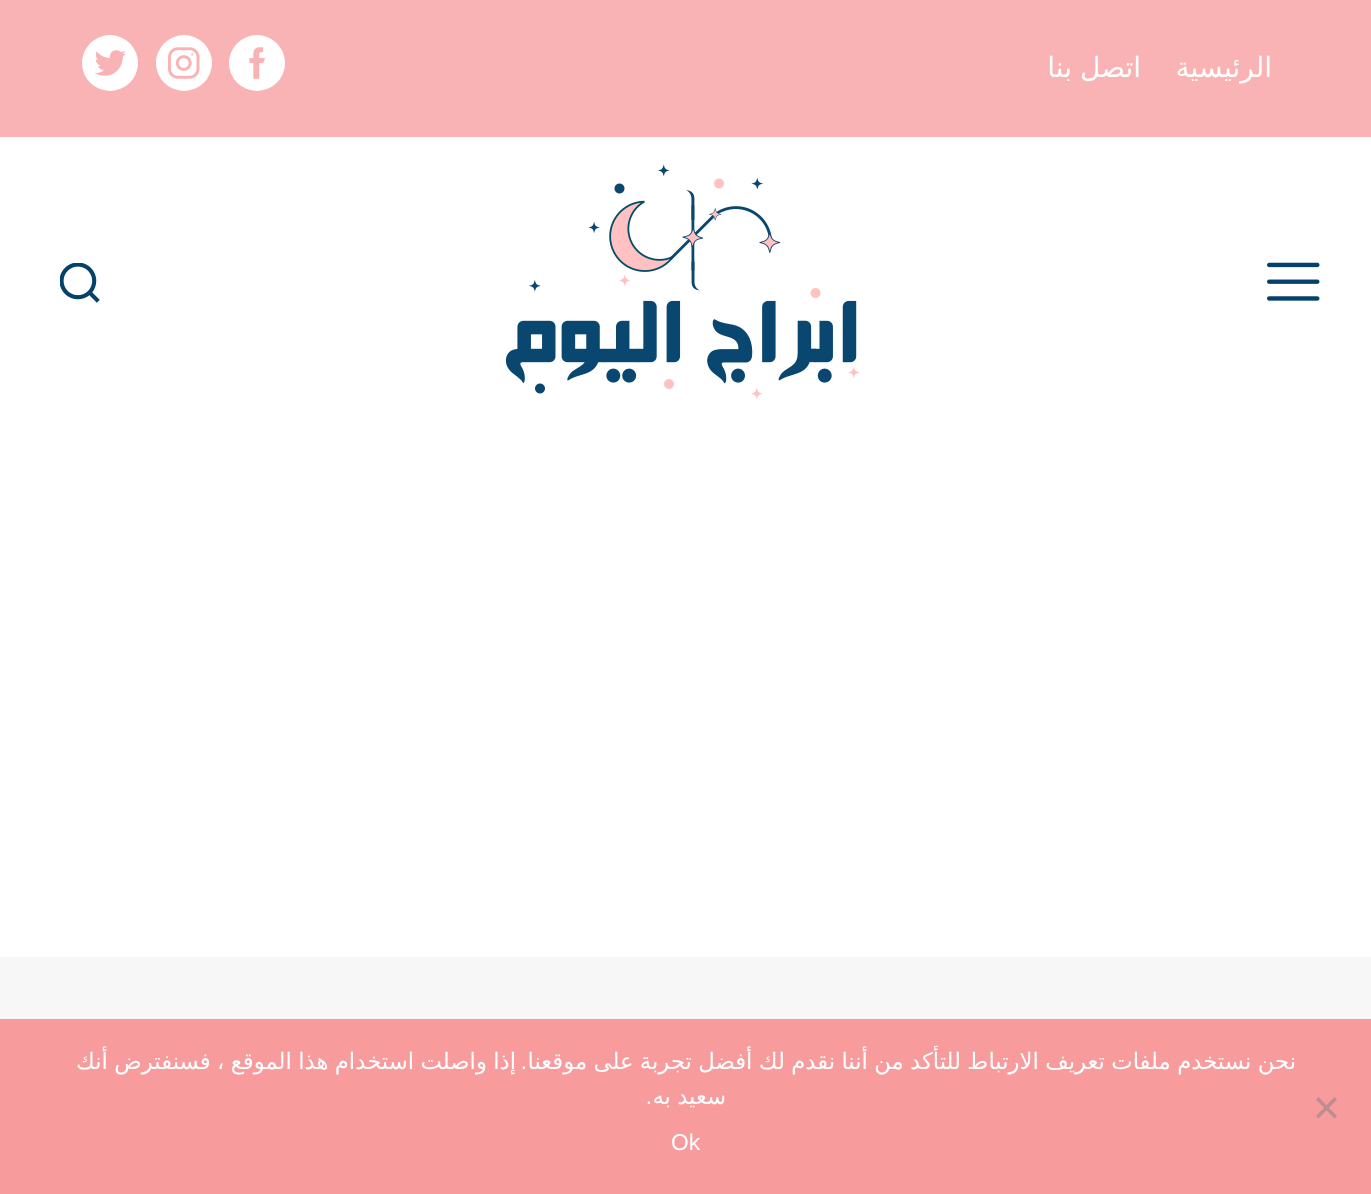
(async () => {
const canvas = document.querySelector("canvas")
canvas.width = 1371
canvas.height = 1194
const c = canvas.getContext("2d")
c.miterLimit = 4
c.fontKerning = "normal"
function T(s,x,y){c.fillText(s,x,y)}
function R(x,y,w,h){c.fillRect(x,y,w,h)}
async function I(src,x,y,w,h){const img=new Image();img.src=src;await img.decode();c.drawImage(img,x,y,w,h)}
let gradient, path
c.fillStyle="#fff"
R(0,0,1371,1194)
c.fillStyle="#f9b3b4"
R(0,0,1371,137)
c.direction="rtl"
c.font="28px DejaVu Sans"
c.fillStyle="#fff"
T("الرئيسية",1272,77)
c.wordSpacing="-1px"
T("اتصل بنا",1141,77)
c.beginPath()
c.arc(257,63,28,0,7)
c.fill()
await I("1.png",249,47,16,32)
c.beginPath()
c.arc(184,63,28,0,7)
c.fill()
await I("2.png",168,47,32,32)
c.beginPath()
c.arc(110,63,28,0,7)
c.fill()
await I("3.png",95,50,31,26)
await I("4.png",1267,262,53,39)
await I("5.png",505,164,355,235)
await I("6.png",60,263,40,40)
gradient = c.createLinearGradient(686,957,686,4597)
gradient.addColorStop(0,"#f7f7f7")
gradient.addColorStop(1,"#fff")
c.fillStyle = gradient
R(0,957,1371,62)
c.fillStyle="#f79b9d"
R(0,1019,1371,175)
c.fillStyle="#bc8e8f"
path = new Path2D("M1334.5 1097l2.5 2.5l-18.5 19l-2.5-2.5z")
c.fill(path)
path = new Path2D("M1316 1099.5l2.5-2.5l18.5 19l-2.5 2.5z")
c.fill(path)
c.wordSpacing="-0.9px"
c.font="22.75px DejaVu Sans"
c.fillStyle="#fff"
T("نحن نستخدم ملفات تعريف الارتباط للتأكد من أننا نقدم لك أفضل تجربة على موقعنا",1296,1069)
c.wordSpacing="0px"
c.font="22.75px Liberation Sans"
T(".",527,1069)
c.wordSpacing="-0.9px"
c.font="22.75px DejaVu Sans"
T("إذا واصلت استخدام هذا الموقع ، فسنفترض أنك",516,1069)
c.wordSpacing="-1px"
T("سعيد به",726,1104)
c.wordSpacing="0px"
c.font="22.75px Liberation Sans"
T(".",652,1104)
c.direction="ltr"
T("Ok",671,1150)
})()
